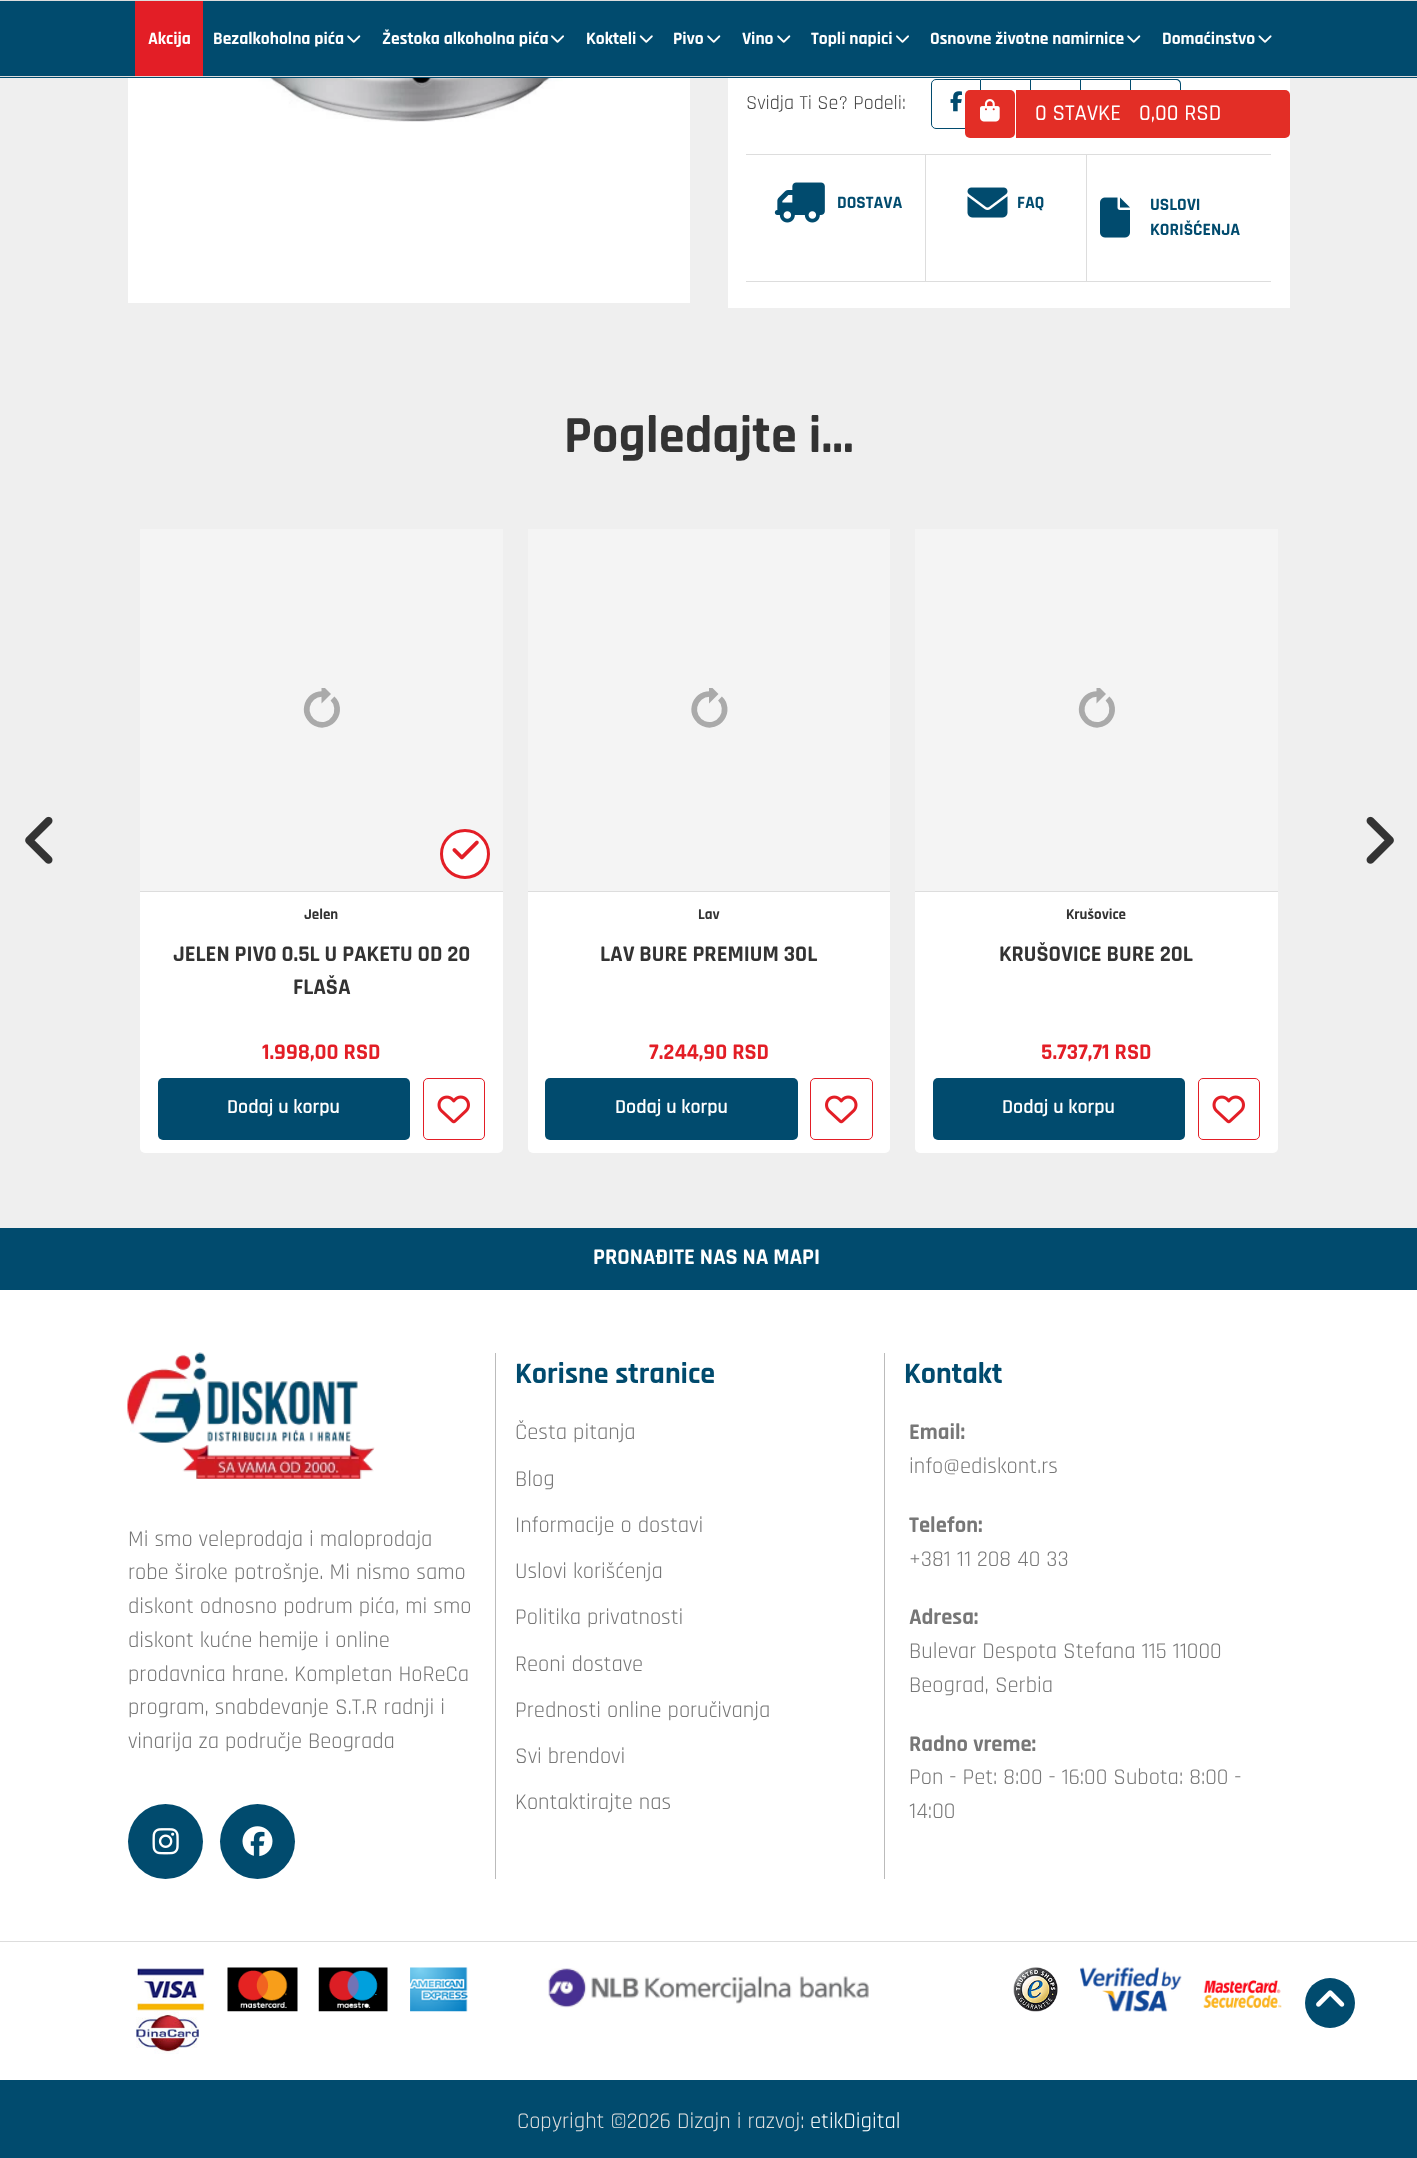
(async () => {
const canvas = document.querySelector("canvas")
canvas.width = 1417
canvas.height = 2158
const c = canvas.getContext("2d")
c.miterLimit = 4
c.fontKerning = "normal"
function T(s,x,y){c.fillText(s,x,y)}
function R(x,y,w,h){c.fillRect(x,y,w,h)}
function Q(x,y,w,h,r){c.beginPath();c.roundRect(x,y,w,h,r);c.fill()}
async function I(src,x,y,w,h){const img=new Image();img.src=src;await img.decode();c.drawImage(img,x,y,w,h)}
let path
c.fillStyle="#efefef"
R(0,0,1417,2158)
c.fillStyle="#014b6e"
R(0,1,1417,77)
c.fillStyle="#ddd"
R(0,0,1417,1)
R(0,76,1417,1)
c.fillStyle="#e31e26"
R(135,1,68,75)
c.font="bold 17.5px Rajdhani"
c.fillStyle="#fff"
T("Akcija",148,44)
T("Bezalkoholna pića",213,44)
await I("1.png",347,35,14,8)
T("Žestoka alkoholna pića",382,44)
await I("2.png",551,35,13,8)
T("Kokteli",586,44)
await I("3.png",639,35,14,8)
T("Pivo",673,44)
await I("1.png",707,35,14,8)
T("Vino",742,44)
await I("1.png",777,35,14,8)
T("Topli napici",811,44)
await I("2.png",896,35,13,8)
T("Osnovne životne namirnice",930,44)
await I("1.png",1127,35,14,8)
T("Domaćinstvo",1162,44)
await I("4.png",1258,35,14,8)
R(728,78,562,230)
c.beginPath()
c.roundRect(931.5,79.5,49,49,[4.5,0,0,4.5])
c.strokeStyle="#014b6e"
c.stroke()
c.fillStyle="#e32e26"
Q(965,90,50,48,5)
await I("5.png",980,99,20,23)
c.fillStyle="#014b6e"
path = new Path2D("M1131 79h45c3 0 5 2 5 5v40c0 3-2 5-5 5h-45zm0 1h45c2 0 4 2 4 4v40c0 2-2 4-4 4h-45z")
c.fill(path,"evenodd")
c.fillStyle="#e32e26"
c.beginPath()
c.roundRect(1015,90,275,48,[0,5,5,0])
c.fill()
c.fillStyle="#fff"
R(1015,90,1,48)
c.font="500 22.5px Rajdhani"
T("0 STAVKE",1035,120)
T("0,00 RSD",1139,120)
R(128,78,562,225)
await I("6.png",246,78,329,44)
c.font="20px Rajdhani"
c.fillStyle="#444"
T("Svidja Ti Se? Podeli:",746,109)
await I("7.png",950,91,12,21)
c.fillStyle="#014b6e"
R(981,79,150,1)
R(1030,79,1,11)
R(1080,79,1,11)
R(1130,79,1,11)
c.fillStyle="#ddd"
R(746,154,525,1)
R(746,281,525,1)
R(925,155,1,126)
await I("8.png",774,182,51,41)
c.font="bold 17.5px Rajdhani"
c.fillStyle="#014b6e"
T("DOSTAVA",837,208)
c.fillStyle="#ddd"
R(1086,155,1,126)
await I("9.png",967,187,41,31)
c.fillStyle="#014b6e"
T("FAQ",1017,208)
await I("10.png",1100,197,30,41)
T("USLOVI",1150,210)
T("KORIŠĆENJA",1150,235)
c.font="bold 52.5px Rajdhani"
c.fillStyle="#333"
T("Pogledajte i...",564,452)
await I("11.png",25,816,28,48)
await I("12.png",1366,816,28,48)
c.fillStyle="#fff"
Q(140,529,363,624,5)
c.fillStyle="#f4f4f4"
R(140,529,363,362)
path = new Path2D("M322 694c-7.5 0-13.5 5-15 12.5c-1.5 7 2.5 14 9 17c7 3 14.5 .5 18.5-5.5c4-6 3.5-14.5-2-19.5")
c.strokeStyle="#aaa"
c.lineWidth=5.7
c.stroke(path)
c.save()
c.beginPath()
c.rect(300,688,44,43)
c.clip()
c.fillStyle="#aaa"
path = new Path2D("M321.5 684.5v19l9.5-9.5l-9.5-9.5")
c.fill(path)
c.restore()
c.fillStyle="#fff"
c.beginPath()
c.arc(465,854,23.5,0,7)
c.fill()
c.strokeStyle="#e31e26"
c.lineWidth=3
c.stroke()
await I("13.png",452,840,27,20)
c.fillStyle="#ddd"
R(140,891,363,1)
c.font="bold 15px Rajdhani"
c.fillStyle="#333"
T("Jelen",304,919)
c.font="bold 22.5px Rajdhani"
T("JELEN PIVO 0.5L U PAKETU OD 20",173,961)
T("FLAŠA",293,994)
c.fillStyle="#e31e26"
T("1.998,00 RSD",262,1059)
c.fillStyle="#014b6e"
Q(158,1078,252,62,5)
c.font="600 20px Rajdhani"
c.fillStyle="#fff"
T("Dodaj u korpu",227,1113)
c.beginPath()
c.roundRect(423.5,1078.5,61,61,4.5)
c.lineWidth=1
c.stroke()
await I("14.png",437,1095,33,29)
Q(528,529,362,624,5)
c.fillStyle="#f4f4f4"
R(528,529,362,362)
path = new Path2D("M709.5 694c-7.5 0-13.5 5-15 12.5c-1.5 7 2.5 14 9 17c7 3 14.5 .5 18.5-5.5c4-6 3.5-14.5-2-19.5")
c.strokeStyle="#aaa"
c.lineWidth=5.7
c.stroke(path)
c.save()
c.beginPath()
c.rect(688,688,43,43)
c.clip()
c.fillStyle="#aaa"
path = new Path2D("M709 684.5v19l9.5-9.5l-9.5-9.5")
c.fill(path)
c.restore()
c.fillStyle="#ddd"
R(528,891,362,1)
c.font="bold 15px Rajdhani"
c.fillStyle="#333"
T("Lav",698,919)
c.font="bold 22.5px Rajdhani"
T("LAV BURE PREMIUM 30L",600,961)
c.fillStyle="#e31e26"
T("7.244,90 RSD",649,1059)
c.fillStyle="#014b6e"
Q(545,1078,253,62,5)
c.font="600 20px Rajdhani"
c.fillStyle="#fff"
T("Dodaj u korpu",615,1113)
c.beginPath()
c.roundRect(810.5,1078.5,62,61,4.5)
c.strokeStyle="#e31e26"
c.lineWidth=1
c.stroke()
await I("15.png",825,1095,33,29)
Q(915,529,363,624,5)
c.fillStyle="#f4f4f4"
R(915,529,363,362)
path = new Path2D("M1097 694c-7.5 0-13.5 5-15 12.5c-1.5 7 2.5 14 9 17c7 3 14.5 .5 18.5-5.5c4-6 3.5-14.5-2-19.5")
c.strokeStyle="#aaa"
c.lineWidth=5.7
c.stroke(path)
c.save()
c.beginPath()
c.rect(1075,688,44,43)
c.clip()
c.fillStyle="#aaa"
path = new Path2D("M1096.5 684.5v19l9.5-9.5l-9.5-9.5")
c.fill(path)
c.restore()
c.fillStyle="#ddd"
R(915,891,363,1)
c.font="bold 15px Rajdhani"
c.fillStyle="#333"
T("Krušovice",1066,919)
c.font="bold 22.5px Rajdhani"
T("KRUŠOVICE BURE 20L",999,961)
c.fillStyle="#e31e26"
T("5.737,71 RSD",1041,1059)
c.fillStyle="#014b6e"
Q(933,1078,252,62,5)
c.font="600 20px Rajdhani"
c.fillStyle="#fff"
T("Dodaj u korpu",1002,1113)
c.beginPath()
c.roundRect(1198.5,1078.5,61,61,4.5)
c.strokeStyle="#e31e26"
c.lineWidth=1
c.stroke()
await I("14.png",1212,1095,33,29)
R(0,1290,1417,790)
c.fillStyle="#014b6e"
R(0,1228,1417,62)
c.font="bold 22.5px Rajdhani"
c.fillStyle="#fff"
T("PRONAĐITE NAS NA MAPI",593,1264)
c.fillStyle="#bbb"
R(495,1353,1,526)
await I("16.png",127,1352,248,127)
c.font="22.5px Rajdhani"
c.fillStyle="#777"
T("Mi smo veleprodaja i maloprodaja",128,1546)
T("robe široke potrošnje. Mi nismo samo",128,1579)
T("diskont odnosno podrum pića, mi smo",128,1613)
T("diskont kućne hemije i online",128,1647)
T("prodavnica hrane. Kompletan HoReCa",128,1681)
T("program, snabdevanje S.T.R radnji i",128,1714)
T("vinarija za područje Beograda",128,1748)
c.fillStyle="#014b6e"
c.beginPath()
c.arc(165.5,1841.5,37.5,0,7)
c.fill()
await I("17.png",152,1828,27,27)
c.beginPath()
c.arc(257.5,1841.5,37.5,0,7)
c.fill()
await I("18.png",242,1826,31,31)
c.font="bold 30px Rajdhani"
T("Korisne stranice",515,1383)
c.font="22.5px Rajdhani"
c.fillStyle="#777"
T("Česta pitanja",515,1439)
T("Blog",515,1486)
T("Informacije o dostavi",515,1532)
T("Uslovi korišćenja",515,1578)
T("Politika privatnosti",515,1624)
T("Reoni dostave",515,1671)
T("Prednosti online poručivanja",515,1717)
T("Svi brendovi",515,1763)
T("Kontaktirajte nas",515,1809)
c.fillStyle="#bbb"
R(884,1353,1,526)
c.font="bold 30px Rajdhani"
c.fillStyle="#014b6e"
T("Kontakt",904,1383)
c.font="bold 22.5px Rajdhani"
c.fillStyle="#777"
T("Email:",909,1439)
c.font="22.5px Rajdhani"
T("info@ediskont.rs",909,1473)
c.font="bold 22.5px Rajdhani"
T("Telefon:",909,1532)
c.font="22.5px Rajdhani"
T("+381 11 208 40 33",909,1566)
c.font="bold 22.5px Rajdhani"
T("Adresa:",909,1624)
c.font="22.5px Rajdhani"
T("Bulevar Despota Stefana 115 11000",909,1658)
T("Beograd, Serbia",909,1692)
c.font="bold 22.5px Rajdhani"
T("Radno vreme:",909,1751)
c.font="22.5px Rajdhani"
T("Pon - Pet: 8:00 - 16:00 Subota: 8:00 -",909,1784)
T("14:00",909,1818)
c.fillStyle="#ddd"
R(0,1941,1417,1)
await I("19.png",136,1967,69,45)
await I("20.png",227,1967,71,45)
await I("21.png",318,1967,70,45)
await I("22.png",410,1967,58,45)
await I("23.png",136,2011,63,43)
await I("24.png",548,1968,321,40)
await I("25.png",1013,1967,45,45)
await I("26.png",1080,1967,102,45)
await I("27.png",1203,1980,79,28)
c.fillStyle="#014b6e"
R(0,2080,1417,78)
c.fillStyle="#ddd"
T("Copyright ©2026 Dizajn i razvoj:",517,2128)
c.fillStyle="#fff"
T("etikDigital",810,2128)
c.fillStyle="#014b6e"
c.beginPath()
c.arc(1330,2003,25,0,7)
c.fill()
await I("28.png",1316,1990,29,17)
})()
